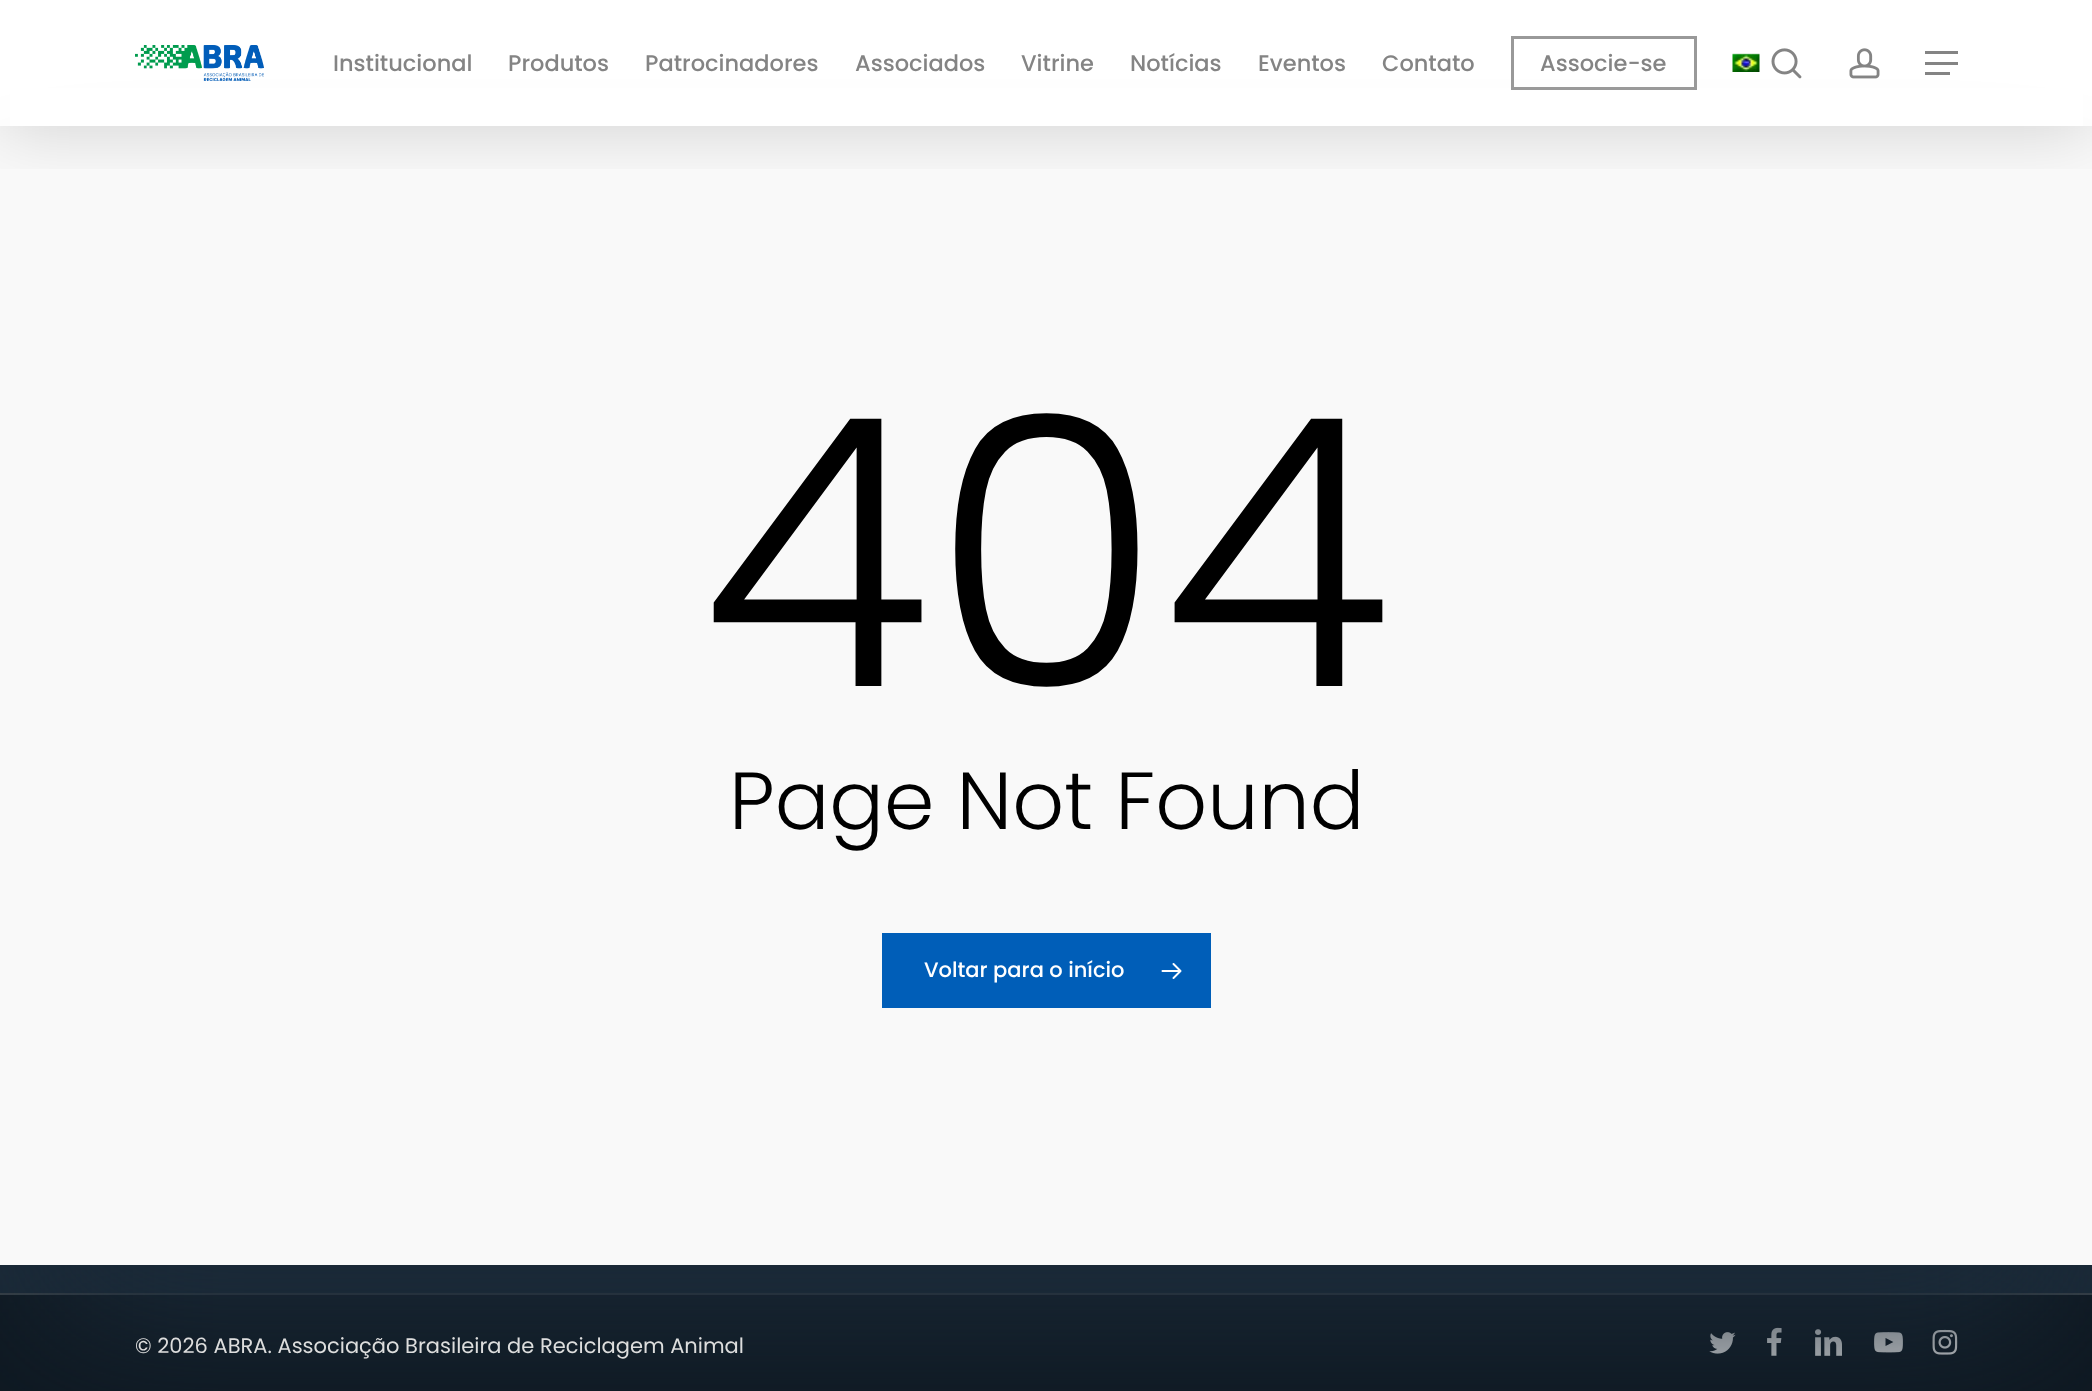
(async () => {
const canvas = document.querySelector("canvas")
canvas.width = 2092
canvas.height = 1391
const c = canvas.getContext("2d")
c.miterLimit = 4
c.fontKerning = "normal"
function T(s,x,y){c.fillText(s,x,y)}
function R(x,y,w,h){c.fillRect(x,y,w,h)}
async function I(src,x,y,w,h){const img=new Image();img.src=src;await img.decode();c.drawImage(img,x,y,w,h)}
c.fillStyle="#fff"
R(0,0,2092,1391)
c.fillStyle="#1a2937"
R(0,1265,2092,28)
c.fillStyle="#0e1821"
R(0,1295,2092,96)
c.fillStyle="#394249"
R(0,1293,2092,2)
await I("6.png",1709,1332,27,22)
await I("7.png",1767,1327,15,29)
await I("8.png",1815,1329,27,27)
await I("9.png",1874,1332,29,21)
await I("10.png",1932,1329,26,26)
c.fillStyle="#1a2937"
c.filter="blur(82.5px)"
c.beginPath()
c.rect(45,276,2003,1049)
c.fill()
c.filter="none"
c.fillStyle="#f9f9f9"
R(0,126,2092,1139)
c.save()
c.beginPath()
c.rect(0,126,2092,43)
c.clip()
c.fillStyle="#00000026"
c.filter="blur(34px)"
c.beginPath()
c.rect(0,5,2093,126)
c.fill()
c.filter="none"
c.restore()
c.fillStyle="#fffffffa"
R(10,88,2073,38)
await I("1.png",135,45,129,36)
c.font="500 22.5px Poppins"
c.fillStyle="#848484"
T("Institucional",333,71)
T("Produtos",508,71)
T("Patrocinadores",645,71)
T("Associados",855,71)
T("Vitrine",1021,71)
T("Notícias",1130,71)
T("Eventos",1258,71)
T("Contato",1382,71)
c.strokeStyle="#999"
c.lineWidth=3
c.strokeRect(1512.5,37.5,183,51)
T("Associe-se",1540,71)
await I("2.png",1732,53,28,19)
await I("3.png",1771,48,31,31)
await I("4.png",1849,48,31,31)
R(1925,51,33,3)
R(1925,72,25,3)
R(1925,62,33,3)
c.font="300 375px Poppins"
c.fillStyle="#000"
T("404",701,686)
c.font="300 81px Poppins"
T("Page Not Found",729,829)
c.fillStyle="#005eb8"
R(882,933,329,75)
c.font="500 21px Poppins"
c.fillStyle="#fff"
T("Voltar para o início",924,977)
await I("5.png",1161,963,21,16)
c.font="21px Poppins"
c.fillStyle="#ddd"
T("© 2026 ABRA. Associação Brasileira de Reciclagem Animal",135,1353)
})()
